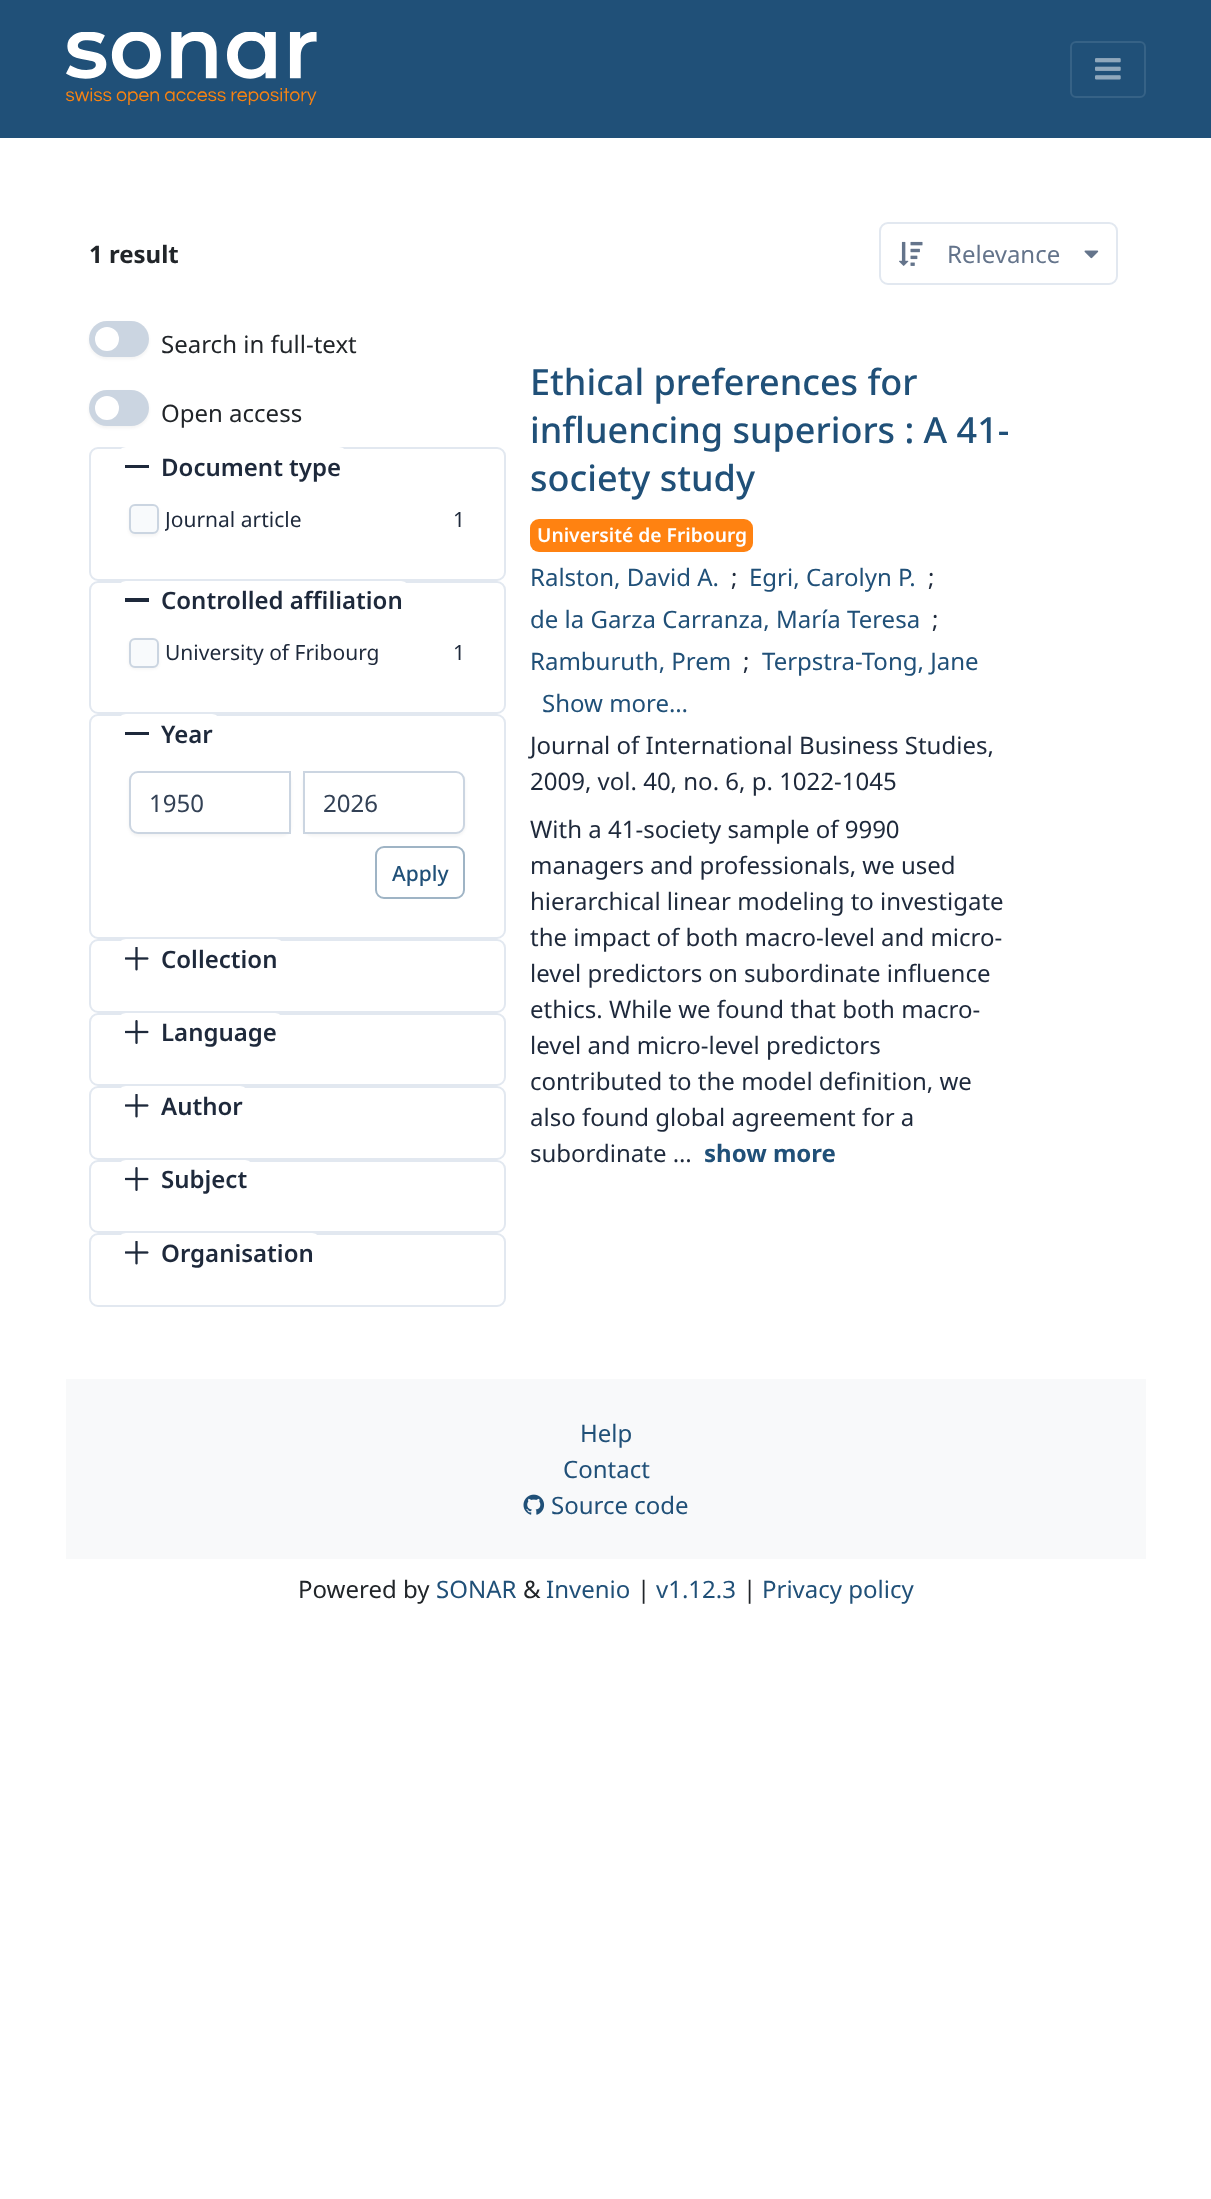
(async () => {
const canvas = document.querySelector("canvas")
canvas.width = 1211
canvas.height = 2199
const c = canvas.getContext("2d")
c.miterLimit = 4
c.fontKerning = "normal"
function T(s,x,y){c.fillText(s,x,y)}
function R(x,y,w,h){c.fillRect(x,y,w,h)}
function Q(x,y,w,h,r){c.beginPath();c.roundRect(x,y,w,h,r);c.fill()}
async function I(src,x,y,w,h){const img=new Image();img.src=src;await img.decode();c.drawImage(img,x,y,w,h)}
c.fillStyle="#fff"
R(0,0,1211,2199)
c.fillStyle="#205078"
R(0,0,1211,138)
await I("1.png",66,32,251,73)
c.beginPath()
c.roundRect(1071,42,74,55,5)
c.strokeStyle="#366286"
c.lineWidth=2
c.stroke()
await I("2.png",1095,58,26,22)
c.font="bold 24px Noto Sans"
c.fillStyle="#212529"
T("1 result",89,263)
c.beginPath()
c.roundRect(880,223,237,61,8)
c.strokeStyle="#e2e8f0"
c.stroke()
await I("3.png",899,241,24,25)
c.font="24px Noto Sans"
c.fillStyle="#64748b"
T("Relevance",947,263)
await I("4.png",1084,250,15,9)
c.fillStyle="#1212170d"
c.filter="blur(1.5px)"
c.beginPath()
c.roundRect(89,323,60,36,18)
c.fill()
c.filter="none"
c.fillStyle="#cbd5e1"
Q(89,321,60,36,18)
c.fillStyle="#fff"
c.beginPath()
c.arc(107,339,12,0,7)
c.fill()
c.fillStyle="#212529"
T("Search in full-text",161,353)
c.fillStyle="#1212170d"
c.filter="blur(1.5px)"
c.beginPath()
c.roundRect(89,392,60,36,18)
c.fill()
c.filter="none"
c.fillStyle="#cbd5e1"
Q(89,390,60,36,18)
c.fillStyle="#fff"
c.beginPath()
c.arc(107,408,12,0,7)
c.fill()
c.fillStyle="#212529"
T("Open access",161,422)
c.beginPath()
c.roundRect(90,448,415,132,8)
c.stroke()
c.fillStyle="#fff"
Q(117,447,231,45,9)
c.fillStyle="#1e293b"
R(125,465,24,3)
c.font="600 24px Noto Sans"
T("Document type",161,476)
c.fillStyle="#1212170d"
c.filter="blur(1.5px)"
c.beginPath()
c.roundRect(129,506,30,30,6)
c.fill()
c.filter="none"
c.fillStyle="#f8fafc"
c.beginPath()
c.roundRect(130,505,28,28,5)
c.fill()
c.strokeStyle="#cbd5e1"
c.stroke()
c.save()
c.beginPath()
c.rect(165,504,270,30)
c.clip()
c.font="21px Noto Sans"
c.fillStyle="#1e293b"
T("Journal article",165,527)
c.restore()
c.font="21px Noto Sans"
c.fillStyle="#1e293b"
T("1",453,527)
c.beginPath()
c.roundRect(90,582,415,131,8)
c.strokeStyle="#e2e8f0"
c.stroke()
c.fillStyle="#fff"
Q(117,581,293,45,9)
c.fillStyle="#1e293b"
R(125,598,24,4)
c.font="600 24px Noto Sans"
T("Controlled affiliation",161,609)
c.fillStyle="#1212170d"
c.filter="blur(1.5px)"
c.beginPath()
c.roundRect(129,639,30,30,6)
c.fill()
c.filter="none"
c.fillStyle="#f8fafc"
c.beginPath()
c.roundRect(130,639,28,28,5)
c.fill()
c.strokeStyle="#cbd5e1"
c.stroke()
c.font="21px Noto Sans"
c.fillStyle="#1e293b"
T("University of Fribourg",165,660)
T("1",453,660)
c.beginPath()
c.roundRect(90,715,415,223,8)
c.strokeStyle="#e2e8f0"
c.stroke()
c.fillStyle="#fff"
Q(117,714,104,45,9)
c.fillStyle="#1e293b"
R(125,732,24,3)
c.font="600 24px Noto Sans"
T("Year",161,743)
c.fillStyle="#1212170d"
c.filter="blur(1.5px)"
c.beginPath()
c.roundRect(129,773,162,63,9)
c.fill()
c.filter="none"
c.fillStyle="#fff"
c.beginPath()
c.roundRect(130,772,160,61,[8,0,0,8])
c.fill()
c.strokeStyle="#cbd5e1"
c.stroke()
c.font="24px Noto Sans"
c.fillStyle="#334155"
T("1950",149,812)
c.fillStyle="#1212170d"
c.filter="blur(1.5px)"
c.beginPath()
c.roundRect(303,773,162,63,9)
c.fill()
c.filter="none"
c.fillStyle="#fff"
c.beginPath()
c.roundRect(304,772,160,61,[0,8,8,0])
c.fill()
c.stroke()
c.fillStyle="#334155"
T("2026",323,812)
c.beginPath()
c.roundRect(376,847,88,51,8)
c.strokeStyle="#9fb4c5"
c.stroke()
c.font="500 21px Noto Sans"
c.fillStyle="#205078"
T("Apply",392,881)
c.beginPath()
c.roundRect(90,940,415,72,8)
c.strokeStyle="#e2e8f0"
c.stroke()
c.fillStyle="#fff"
Q(117,939,168,45,9)
await I("5.png",125,947,24,24)
c.font="600 24px Noto Sans"
c.fillStyle="#1e293b"
T("Collection",161,968)
c.beginPath()
c.roundRect(90,1014,415,71,8)
c.stroke()
c.fillStyle="#fff"
Q(117,1013,167,45,9)
await I("6.png",125,1020,24,24)
c.fillStyle="#1e293b"
T("Language",161,1041)
c.beginPath()
c.roundRect(90,1087,415,72,8)
c.stroke()
c.fillStyle="#fff"
Q(117,1086,132,45,9)
await I("5.png",125,1094,24,24)
c.fillStyle="#1e293b"
T("Author",161,1115)
c.beginPath()
c.roundRect(90,1161,415,71,8)
c.stroke()
c.fillStyle="#fff"
Q(117,1160,137,45,9)
await I("6.png",125,1167,24,24)
c.fillStyle="#1e293b"
T("Subject",161,1188)
c.beginPath()
c.roundRect(90,1234,415,72,8)
c.stroke()
c.fillStyle="#fff"
Q(117,1233,204,45,9)
await I("5.png",125,1241,24,24)
c.fillStyle="#1e293b"
T("Organisation",161,1262)
c.font="500 36px Noto Sans"
c.fillStyle="#205078"
T("Ethical preferences for",530,395)
T("influencing superiors : A 41-",530,443)
T("society study",530,491)
c.fillStyle="#ff8211"
Q(530,519,223,33,9)
c.font="600 19.25px Noto Sans"
c.fillStyle="#fff"
T("Université de Fribourg",537,542)
c.font="24px Noto Sans"
c.fillStyle="#205078"
T("Ralston, David A.",530,586)
c.fillStyle="#1e293b"
T(";",731,586)
c.fillStyle="#205078"
T("Egri, Carolyn P.",749,586)
c.fillStyle="#1e293b"
T(";",928,586)
c.fillStyle="#205078"
T("de la Garza Carranza, María Teresa",530,628)
c.fillStyle="#1e293b"
T(";",932,628)
c.fillStyle="#205078"
T("Ramburuth, Prem",530,670)
c.fillStyle="#1e293b"
T(";",743,670)
c.fillStyle="#205078"
T("Terpstra-Tong, Jane",762,670)
T("Show more…",542,712)
c.fillStyle="#1e293b"
T("Journal of International Business Studies,",530,754)
T("2009, vol. 40, no. 6, p. 1022-1045",530,790)
T("With a 41-society sample of 9990",530,838)
T("managers and professionals, we used",530,874)
T("hierarchical linear modeling to investigate",530,910)
T("the impact of both macro-level and micro-",530,946)
T("level predictors on subordinate influence",530,982)
T("ethics. While we found that both macro-",530,1018)
T("level and micro-level predictors",530,1054)
T("contributed to the model definition, we",530,1090)
T("also found global agreement for a",530,1126)
T("subordinate …",530,1162)
c.font="bold 24px Noto Sans"
c.fillStyle="#205078"
T("show more",704,1162)
c.fillStyle="#f8f9fa"
R(66,1379,1080,180)
c.font="24px Noto Sans"
c.fillStyle="#205078"
T("Help",580,1442)
T("Contact",563,1478)
await I("7.png",523,1494,22,21)
T("Source code",551,1514)
c.fillStyle="#212529"
T("Powered by",298,1598)
c.fillStyle="#205078"
T("SONAR",436,1598)
c.fillStyle="#212529"
T("&",523,1598)
c.fillStyle="#205078"
T("Invenio",546,1598)
c.fillStyle="#212529"
T("|",637,1598)
c.fillStyle="#205078"
T("v1.12.3",656,1598)
c.fillStyle="#212529"
T("|",743,1598)
c.fillStyle="#205078"
T("Privacy policy",762,1598)
})()
